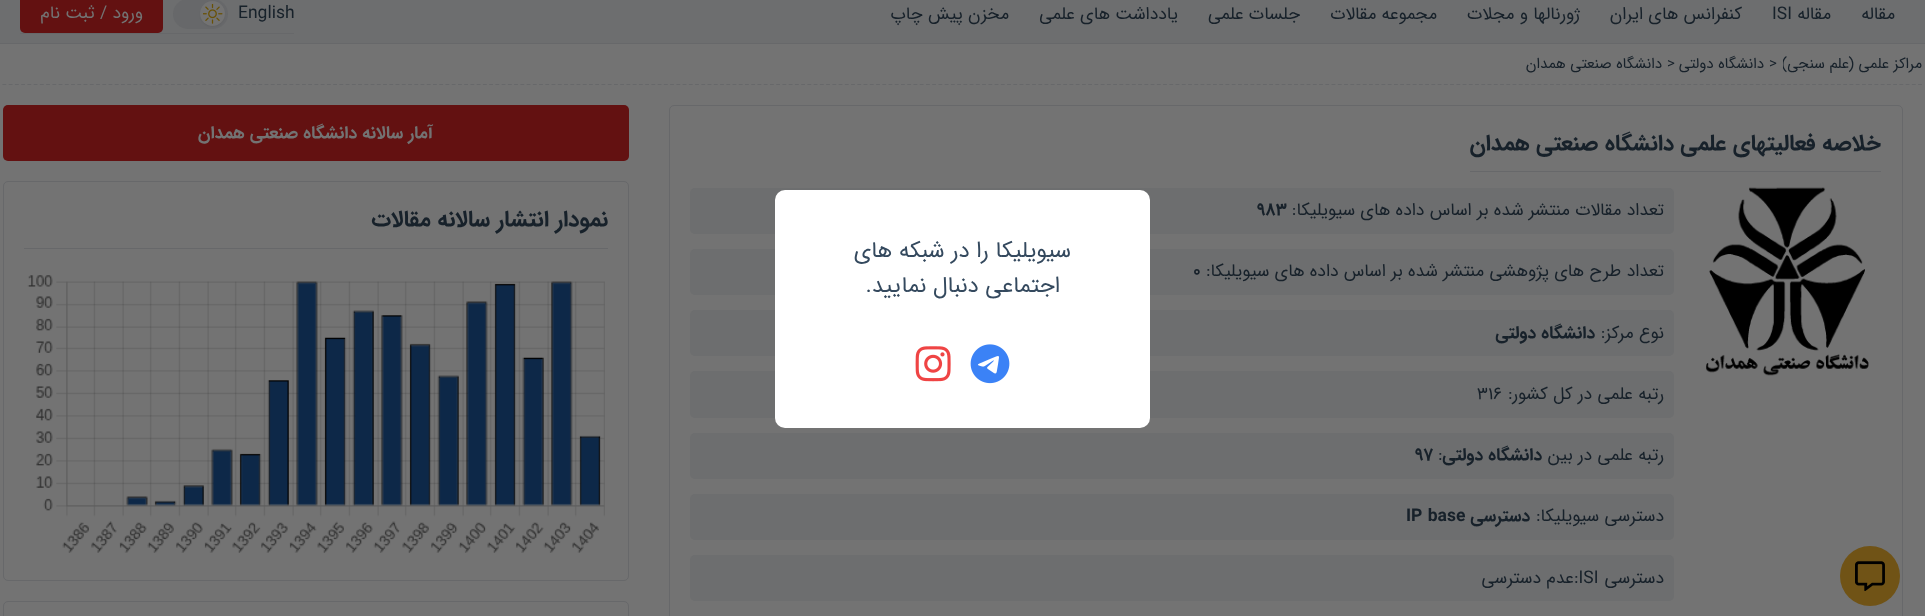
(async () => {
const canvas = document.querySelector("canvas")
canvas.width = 1925
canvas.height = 616
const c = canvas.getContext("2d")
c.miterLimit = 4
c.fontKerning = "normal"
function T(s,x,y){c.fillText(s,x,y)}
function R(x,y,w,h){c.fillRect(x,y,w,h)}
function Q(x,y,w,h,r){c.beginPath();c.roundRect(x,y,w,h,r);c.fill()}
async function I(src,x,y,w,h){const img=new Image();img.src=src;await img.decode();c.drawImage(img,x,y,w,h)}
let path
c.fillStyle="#737373"
R(0,0,1925,616)
c.fillStyle="#6d6e6f"
R(0,0,1925,43)
c.fillStyle="#67686a"
R(0,43,1925,1)
c.direction="rtl"
c.font="17.5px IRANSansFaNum"
c.fillStyle="#17212a"
T("مقاله",1895,19)
T("مقاله",1831,19)
c.direction="ltr"
T("ISI",1772,19)
c.direction="rtl"
T("کنفرانس های ایران",1742,19)
T("ژورنالها و مجلات",1580,19)
T("مجموعه مقالات",1437,19)
T("جلسات علمی",1300,19)
T("یادداشت های علمی",1178,19)
T("مخزن پیش چاپ",1009,19)
c.fillStyle="#67686a"
R(20,33,274,1)
c.direction="ltr"
c.fillStyle="#17212a"
T("English",238,18)
c.fillStyle="#67686a"
Q(173,-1,55,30,15)
c.fillStyle="#0000001a"
c.filter="blur(1px)"
c.beginPath()
c.roundRect(201,4,23,22,11)
c.fill()
c.filter="none"
c.fillStyle="#737373"
c.beginPath()
c.arc(212.5,13.5,12.5,0,7)
c.fill()
await I("1.png",203,4,20,20)
c.fillStyle="#631111"
Q(20,-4,143,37,5)
c.direction="rtl"
c.fillStyle="#737373"
T("ورود / ثبت نام",143,18)
path = new Path2D("M2.5 84.5h1920")
c.strokeStyle="#67686a"
c.lineWidth=1.2
c.setLineDash([3.75,2.49])
c.stroke(path)
c.save()
c.beginPath()
c.rect(1783,54,140,20)
c.clip()
c.font="15px IRANSansFaNum"
c.fillStyle="#17212a"
T("مراکز علمی (علم سنجی)",1922,68)
c.restore()
c.direction="ltr"
c.font="15px IRANSansFaNum"
c.fillStyle="#17212a"
T(">",1769,68)
c.direction="rtl"
T("دانشگاه دولتی",1764,68)
c.direction="ltr"
T(">",1667,68)
c.direction="rtl"
T("دانشگاه صنعتی همدان",1662,68)
c.beginPath()
c.roundRect(669.5,105.5,1233,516,4.5)
c.lineWidth=1
c.setLineDash([])
c.stroke()
c.fillStyle="#67686a"
R(1470,171,411,1)
c.font="bold 22.5px IRANSansFaNum"
c.fillStyle="#17212a"
T("خلاصه فعالیتهای علمی",1881,150)
T("دانشگاه صنعتی همدان",1674,150)
await I("2.png",1706,187,163,189)
c.fillStyle="#6d6e6f"
Q(690,188,984,46,5)
c.font="17.5px IRANSansFaNum"
c.fillStyle="#17212a"
T("تعداد مقالات منتشر شده بر اساس داده های سیویلیکا:",1664,215)
c.direction="ltr"
c.font="bold 17.5px IRANSansFaNum"
T("983",1257,215)
c.fillStyle="#6d6e6f"
Q(690,249,984,46,5)
c.direction="rtl"
c.font="17.5px IRANSansFaNum"
c.fillStyle="#17212a"
T("تعداد طرح های پژوهشی منتشر شده بر اساس داده های سیویلیکا:",1664,276)
c.direction="ltr"
c.font="bold 17.5px IRANSansFaNum"
T("0",1193,276)
c.fillStyle="#6d6e6f"
Q(690,310,984,46,5)
c.direction="rtl"
c.font="17.5px IRANSansFaNum"
c.fillStyle="#17212a"
T("نوع مرکز:",1664,338)
c.font="bold 17.5px IRANSansFaNum"
T("دانشگاه دولتی",1595,338)
c.fillStyle="#6d6e6f"
Q(690,371,984,47,5)
c.font="17.5px IRANSansFaNum"
c.fillStyle="#17212a"
T("رتبه علمی در کل کشور:",1664,399)
c.direction="ltr"
T("316",1477,399)
c.fillStyle="#6d6e6f"
Q(690,433,984,46,5)
c.direction="rtl"
c.fillStyle="#17212a"
T("رتبه علمی در بین",1664,460)
c.font="bold 17.5px IRANSansFaNum"
T("دانشگاه دولتی",1542,460)
c.direction="ltr"
c.font="17.5px IRANSansFaNum"
T(":",1438,460)
c.font="bold 17.5px IRANSansFaNum"
T("97",1415,460)
c.fillStyle="#6d6e6f"
Q(690,494,984,46,5)
c.direction="rtl"
c.font="17.5px IRANSansFaNum"
c.fillStyle="#17212a"
T("دسترسی سیویلیکا:",1664,521)
c.font="bold 17.5px IRANSansFaNum"
T("دسترسی",1530,521)
c.direction="ltr"
T("IP base",1406,521)
c.fillStyle="#6d6e6f"
Q(690,555,984,46,5)
c.direction="rtl"
c.font="17.5px IRANSansFaNum"
c.fillStyle="#17212a"
T("دسترسی",1664,583)
c.direction="ltr"
T(":ISI",1574,583)
c.direction="rtl"
T("عدم دسترسی",1574,583)
c.fillStyle="#631111"
Q(3,105,626,56,5)
c.font="bold 17.5px IRANSansFaNum"
c.fillStyle="#737373"
T("آمار سالانه",433,138)
T("دانشگاه صنعتی همدان",357,138)
c.beginPath()
c.roundRect(3.5,181.5,625,399,4.5)
c.stroke()
c.fillStyle="#67686a"
R(24,248,584,1)
c.font="bold 22.5px IRANSansFaNum"
c.fillStyle="#17212a"
T("نمودار انتشار سالانه مقالات",608,226)
await I("3.png",27,275,578,278)
c.beginPath()
c.roundRect(3.5,601.5,625,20,4.5)
c.stroke()
c.fillStyle="#fff"
Q(775,190,375,238,10)
c.font="22.5px IRANSansFaNum"
c.fillStyle="#34495e"
T("سیویلیکا را در شبکه های",1071,257)
T("اجتماعی دنبال نمایید.",1060,292)
await I("4.png",970,344,40,40)
await I("5.png",915,346,36,36)
c.fillStyle="#705316"
c.beginPath()
c.arc(1870,576,30,0,7)
c.fill()
await I("6.png",1855,561,30,30)
})()
